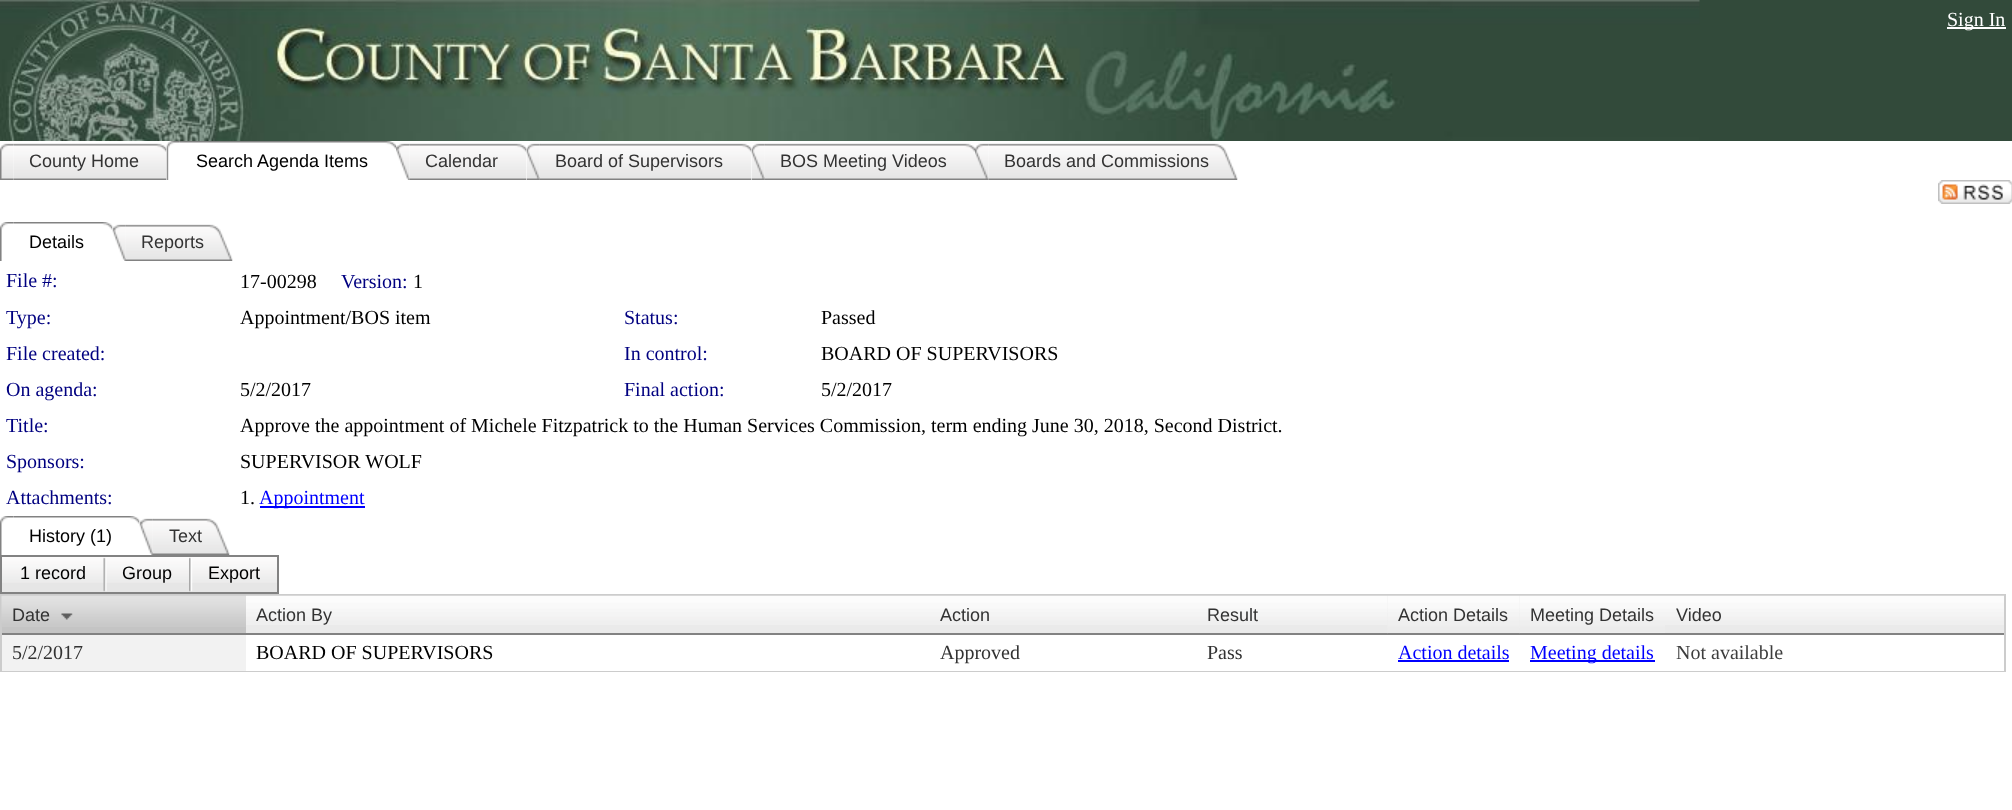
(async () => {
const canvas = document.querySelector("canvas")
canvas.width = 2012
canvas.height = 810
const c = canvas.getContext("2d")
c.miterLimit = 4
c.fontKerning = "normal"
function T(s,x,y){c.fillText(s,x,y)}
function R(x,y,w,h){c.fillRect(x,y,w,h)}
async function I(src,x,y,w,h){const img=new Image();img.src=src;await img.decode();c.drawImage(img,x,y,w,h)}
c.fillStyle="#fff"
R(0,0,2012,810)
c.fillStyle="#324a3a"
R(1699,0,313,141)
await I("1.png",0,0,1700,141)
c.fillStyle="#fff"
R(1947,27,59,2)
c.font="20px Liberation Serif"
T("Sign In",1947,26)
await I("2.png",0,143,14,37)
await I("3.png",13,143,154,37)
c.font="18px Liberation Sans"
c.fillStyle="#333"
T("County Home",29,167)
await I("4.png",166,141,15,39)
await I("5.png",180,141,216,8)
c.fillStyle="#000"
T("Search Agenda Items",196,167)
await I("6.png",396,143,14,37)
await I("7.png",409,143,118,37)
c.fillStyle="#333"
T("Calendar",425,167)
await I("8.png",526,143,15,37)
await I("9.png",540,143,212,37)
T("Board of Supervisors",555,167)
await I("8.png",751,143,15,37)
await I("10.png",765,143,210,37)
T("BOS Meeting Videos",780,167)
await I("11.png",975,143,14,37)
await I("12.png",988,143,250,37)
T("Boards and Commissions",1004,167)
await I("13.png",1938,180,74,24)
await I("14.png",0,222,14,39)
await I("15.png",13,222,100,8)
c.fillStyle="#000"
T("Details",29,248)
await I("16.png",112,224,15,37)
await I("17.png",126,224,107,37)
c.fillStyle="#333"
T("Reports",141,248)
c.font="20px Liberation Serif"
c.fillStyle="#000080"
T("File #:",6,287)
c.fillStyle="#000"
T("17-00298",240,288)
c.fillStyle="#000080"
T("Version:",341,288)
c.fillStyle="#000"
T("1",413,288)
c.fillStyle="#000080"
T("Type:",6,324)
c.fillStyle="#000"
T("Appointment/BOS item",240,324)
c.fillStyle="#000080"
T("Status:",624,324)
c.fillStyle="#000"
T("Passed",821,324)
c.fillStyle="#000080"
T("File created:",6,360)
T("In control:",624,360)
c.fillStyle="#000"
T("BOARD OF SUPERVISORS",821,360)
c.fillStyle="#000080"
T("On agenda:",6,396)
c.fillStyle="#000"
T("5/2/2017",240,396)
c.fillStyle="#000080"
T("Final action:",624,396)
c.fillStyle="#000"
T("5/2/2017",821,396)
c.fillStyle="#000080"
T("Title:",6,432)
c.fillStyle="#000"
T("Approve the appointment of Michele Fitzpatrick to the Human Services Commission, term ending June 30, 2018, Second District.",240,432)
c.fillStyle="#000080"
T("Sponsors:",6,468)
c.fillStyle="#000"
T("SUPERVISOR WOLF",240,468)
c.fillStyle="#000080"
T("Attachments:",6,504)
c.fillStyle="#000"
T("1.",240,504)
c.fillStyle="#00f"
R(260,506,105,2)
T("Appointment",259,504)
await I("18.png",0,516,14,39)
await I("19.png",13,516,127,8)
c.font="18px Liberation Sans"
c.fillStyle="#000"
T("History (1)",29,542)
await I("16.png",139,518,15,37)
await I("20.png",153,518,77,37)
c.fillStyle="#333"
T("Text",169,542)
c.fillStyle="#e6e6e6"
R(2,583,275,9)
await I("21.png",2,557,275,26)
c.strokeStyle="#828282"
c.lineWidth=2
c.strokeRect(1,556,277,37)
c.fillStyle="#000"
T("1 record",20,579)
await I("22.png",103,557,4,35)
T("Group",122,579)
await I("23.png",189,557,4,35)
T("Export",208,579)
c.strokeStyle="#ccc"
c.strokeRect(1,595,2004,76)
c.fillStyle="#c4c4c4"
R(2,627,244,6)
await I("24.png",1,595,245,32)
c.fillStyle="#828282"
R(2,633,1386,2)
c.fillStyle="#333"
T("Date",12,621)
await I("25.png",61,613,12,7)
c.fillStyle="#eaeaea"
R(246,625,951,8)
await I("26.png",246,595,684,30)
c.fillStyle="#333"
T("Action By",256,621)
await I("27.png",930,595,267,30)
T("Action",940,621)
c.fillStyle="#eaeaea"
R(1197,596,323,37)
await I("28.png",1197,595,191,30)
c.fillStyle="#333"
T("Result",1207,621)
await I("29.png",1387,595,133,39)
c.fillStyle="#828282"
R(1388,633,132,2)
c.fillStyle="#333"
T("Action Details",1398,621)
await I("30.png",1519,595,146,39)
c.fillStyle="#828282"
R(1520,633,484,2)
c.fillStyle="#333"
T("Meeting Details",1530,621)
c.fillStyle="#eaeaea"
R(1665,625,339,8)
await I("31.png",1665,595,339,30)
c.fillStyle="#333"
T("Video",1676,621)
c.fillStyle="#f2f2f2"
R(2,635,244,36)
c.font="20px Liberation Serif"
c.fillStyle="#333"
T("5/2/2017",12,659)
c.fillStyle="#fff"
R(246,670,1758,1)
c.fillStyle="#000"
T("BOARD OF SUPERVISORS",256,659)
c.fillStyle="#333"
T("Approved",940,659)
T("Pass",1207,659)
c.fillStyle="#00f"
T("Action details",1398,659)
R(1398,660,111,2)
R(1530,660,125,2)
T("Meeting details",1530,659)
c.fillStyle="#3d3d3d"
T("Not available",1676,659)
})()
